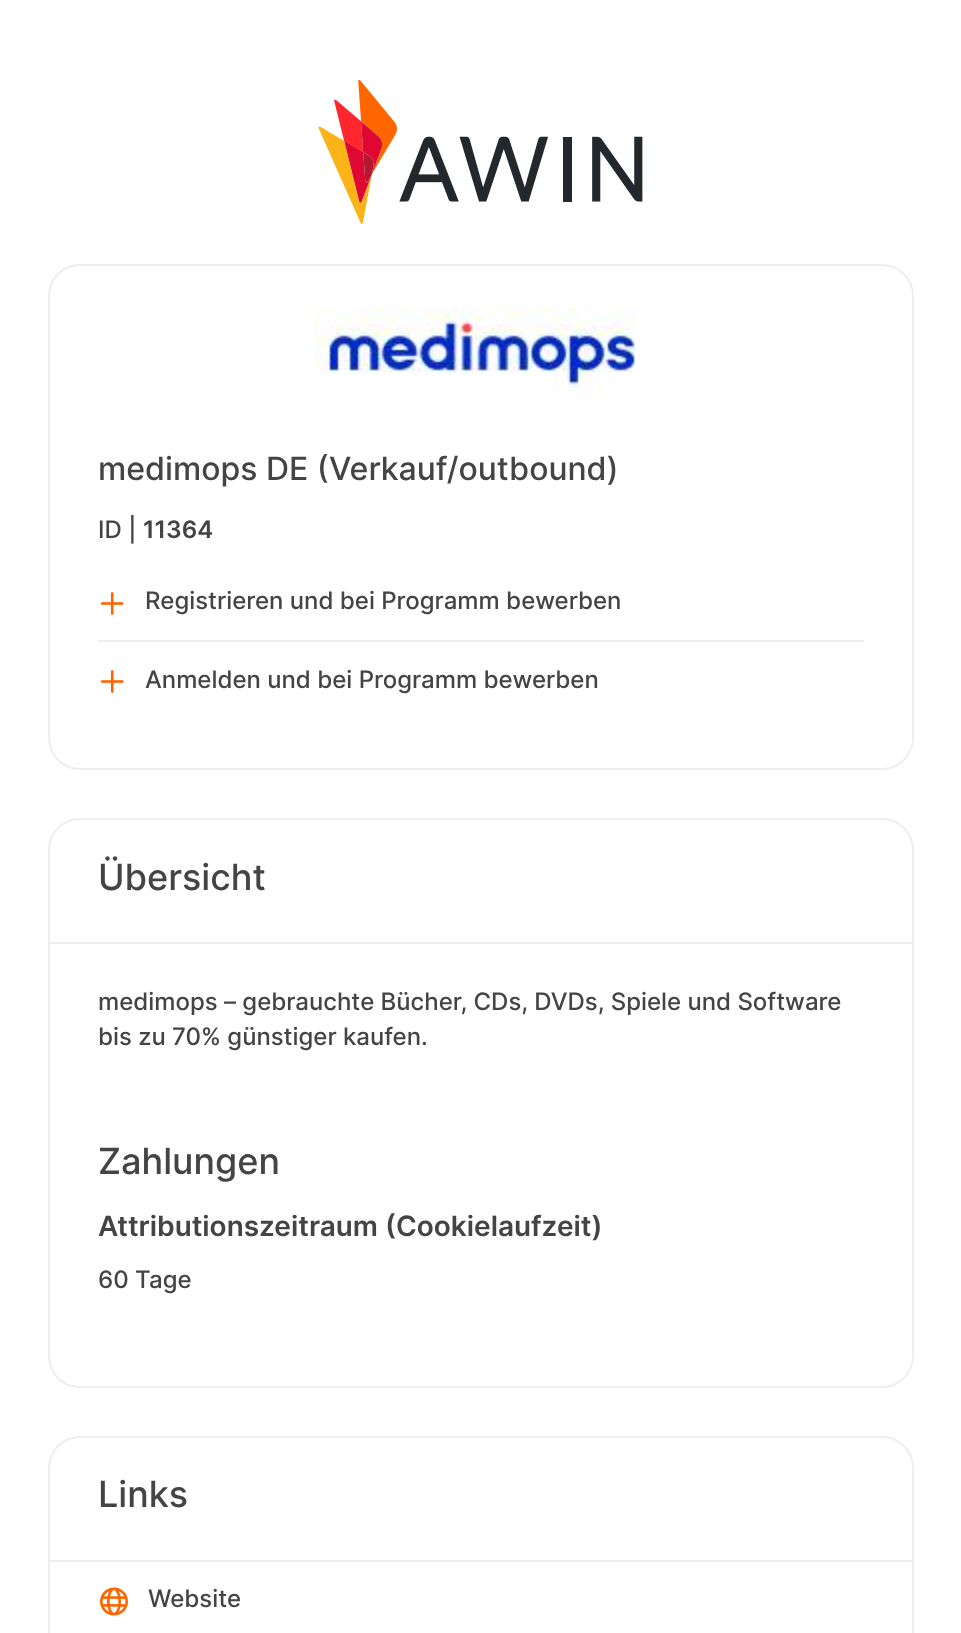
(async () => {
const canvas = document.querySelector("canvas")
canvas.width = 961
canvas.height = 1633
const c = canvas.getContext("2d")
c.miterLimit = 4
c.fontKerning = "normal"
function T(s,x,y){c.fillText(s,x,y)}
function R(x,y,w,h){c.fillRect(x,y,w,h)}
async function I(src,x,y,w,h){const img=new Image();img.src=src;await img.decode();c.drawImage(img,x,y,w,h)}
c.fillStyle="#fff"
R(0,0,961,1633)
await I("1.png",318,80,325,144)
c.beginPath()
c.roundRect(49,265,864,504,31)
c.strokeStyle="#eee"
c.lineWidth=2
c.stroke()
await I("2.png",314,308,322,90)
c.font="500 32px Inter"
c.fillStyle="#444"
T("medimops DE (Verkauf/outbound)",98,480)
c.font="500 24px Inter"
T("ID |",98,538)
c.font="600 24px Inter"
T("11364",143,538)
await I("3.png",100,592,24,23)
c.font="500 24px Inter"
T("Registrieren und bei Programm bewerben",145,609)
c.fillStyle="#eee"
R(98,640,766,2)
await I("3.png",100,670,24,23)
c.fillStyle="#444"
T("Anmelden und bei Programm bewerben",145,688)
c.beginPath()
c.roundRect(49,819,864,568,31)
c.stroke()
c.fillStyle="#eee"
R(50,942,862,2)
c.font="500 36px Inter"
c.fillStyle="#444"
T("Übersicht",98,890)
c.font="500 24px Inter"
T("medimops – gebrauchte Bücher, CDs, DVDs, Spiele und Software",98,1010)
T("bis zu 70% günstiger kaufen.",98,1045)
c.font="500 36px Inter"
T("Zahlungen",98,1174)
c.font="600 28px Inter"
T("Attributionszeitraum (Cookielaufzeit)",98,1236)
c.font="500 24px Inter"
T("60 Tage",98,1288)
c.beginPath()
c.roundRect(49,1437,864,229,31)
c.stroke()
c.fillStyle="#eee"
R(50,1560,862,2)
c.font="500 36px Inter"
c.fillStyle="#444"
T("Links",98,1507)
await I("4.png",100,1587,28,29)
c.font="500 24px Inter"
T("Website",148,1607)
})()
